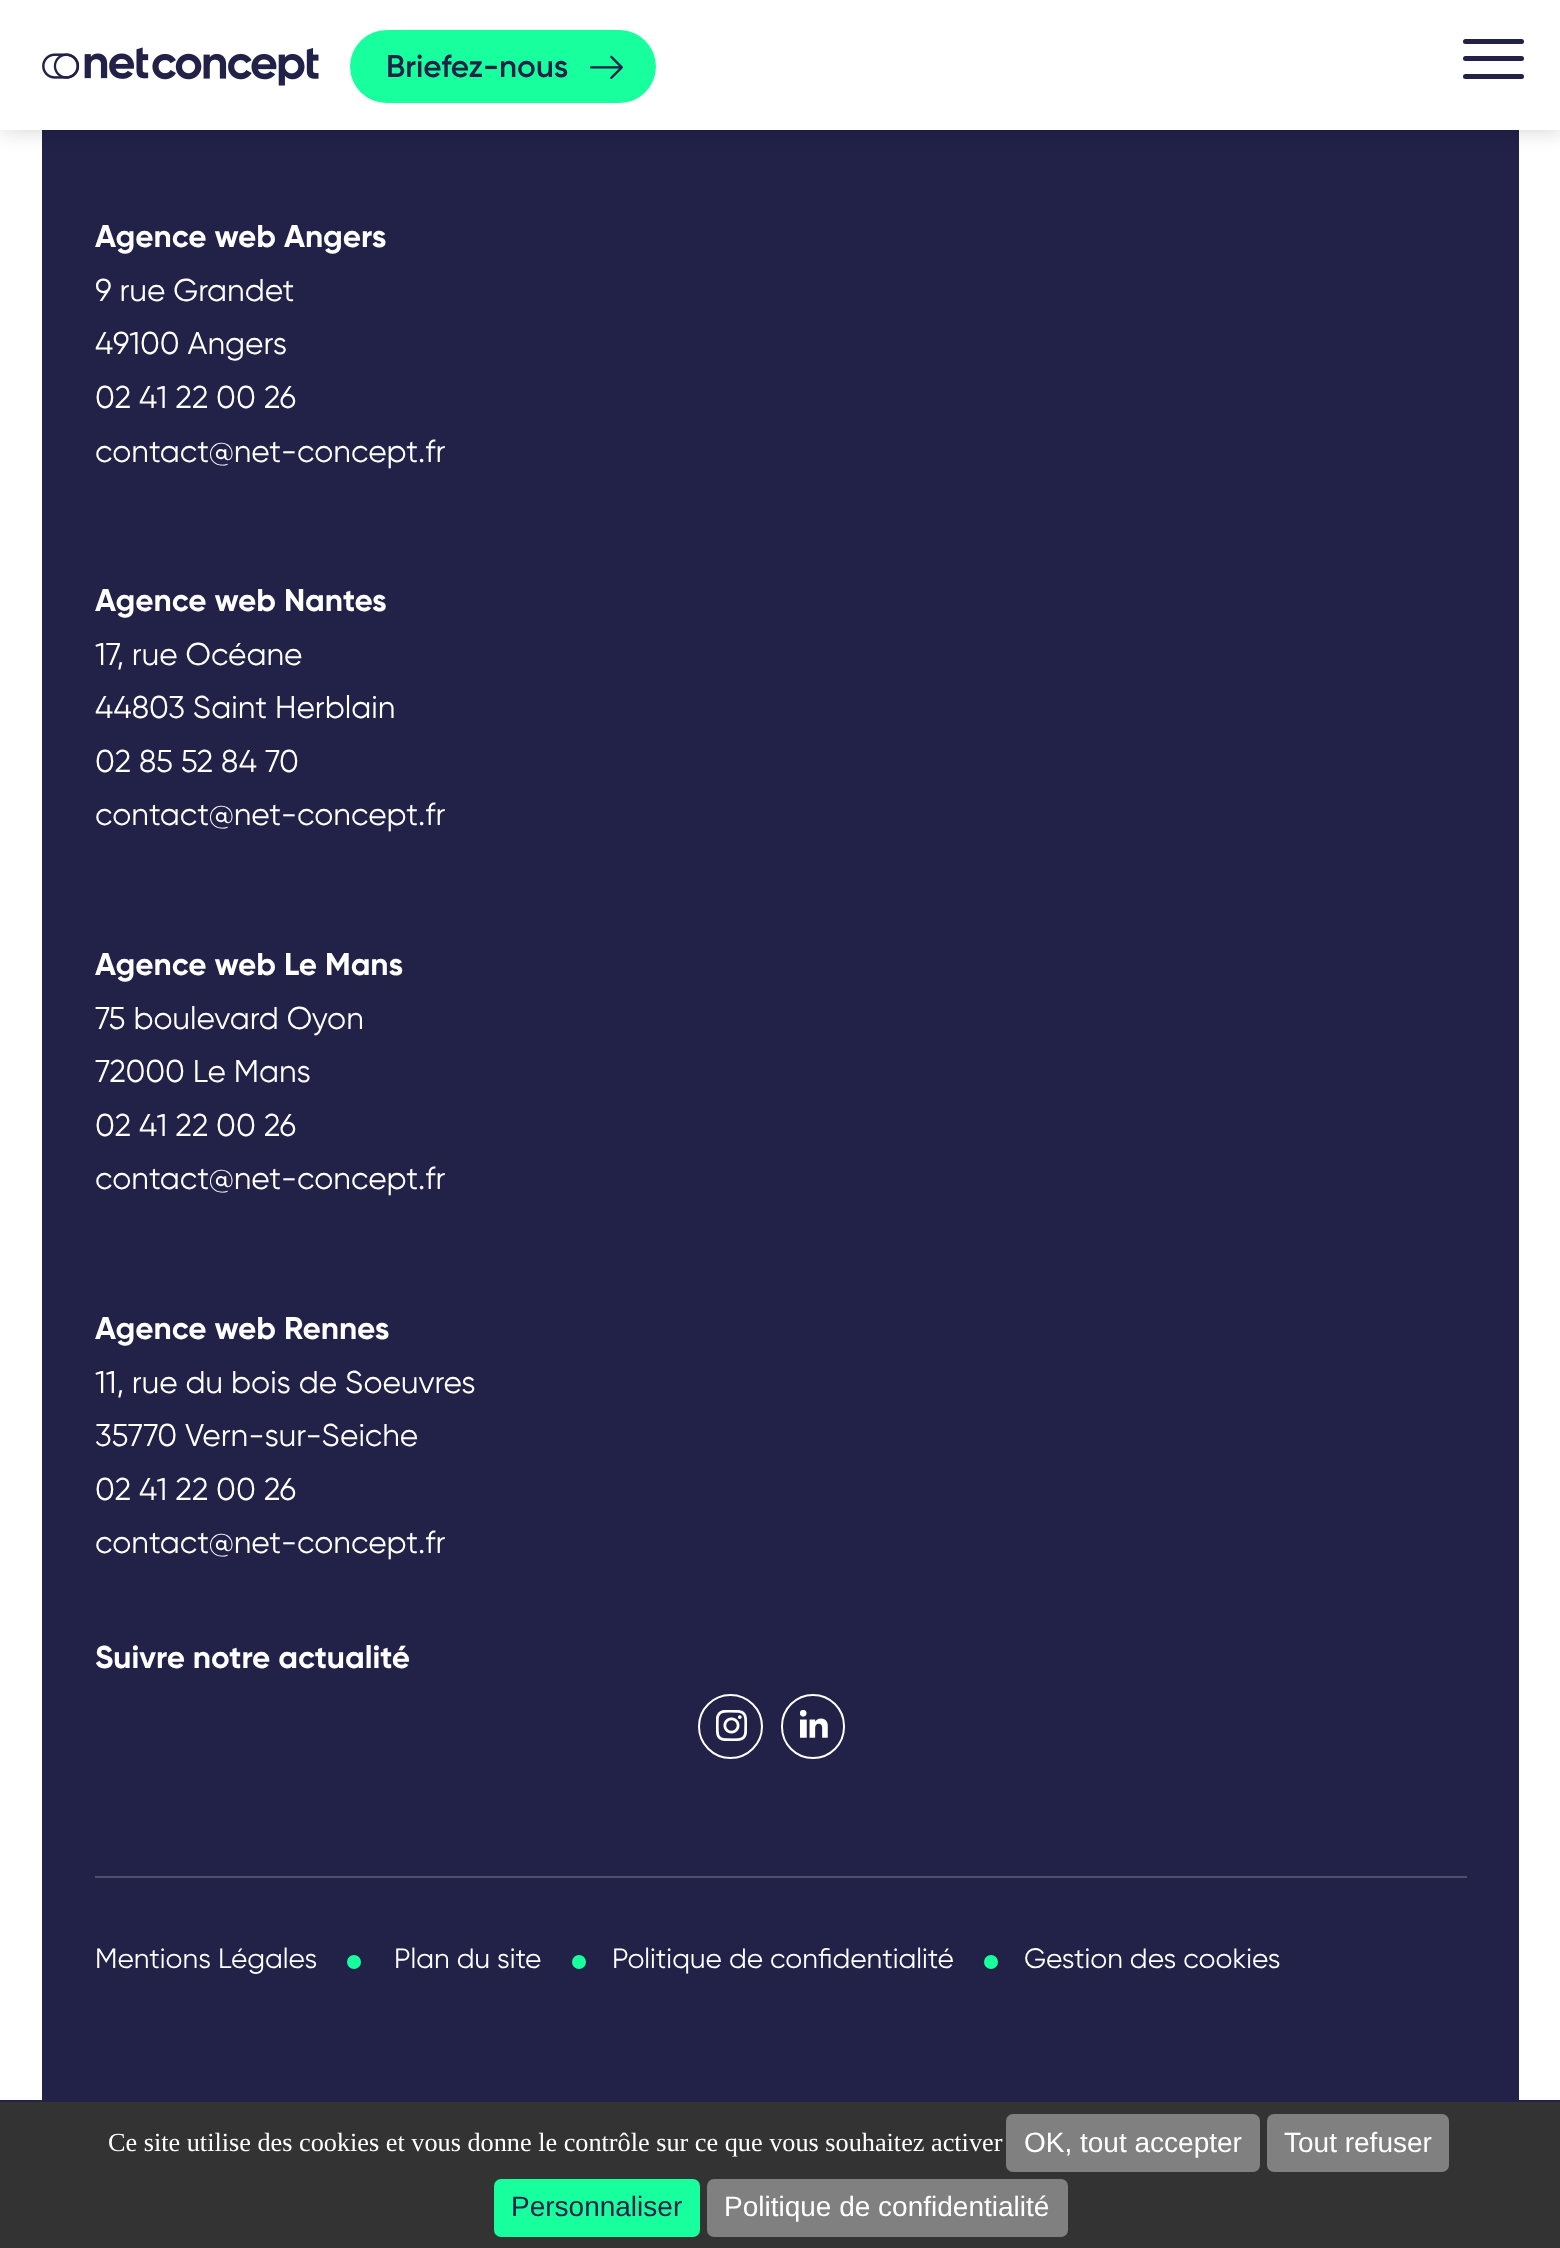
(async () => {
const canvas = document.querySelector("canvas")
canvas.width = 1560
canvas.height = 2248
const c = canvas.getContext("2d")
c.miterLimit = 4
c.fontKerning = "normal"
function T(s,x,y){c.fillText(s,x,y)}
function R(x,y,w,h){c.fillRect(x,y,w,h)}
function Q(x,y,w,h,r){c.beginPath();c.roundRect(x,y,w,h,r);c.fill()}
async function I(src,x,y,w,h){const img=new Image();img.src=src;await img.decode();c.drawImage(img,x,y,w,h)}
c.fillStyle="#fff"
R(0,0,1560,2248)
c.fillStyle="#222148"
R(42,130,1477,1970)
c.fillStyle="#00000029"
c.filter="blur(10.5px)"
c.beginPath()
c.rect(2,2,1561,129)
c.fill()
c.filter="none"
c.fillStyle="#fff"
R(0,0,1560,130)
await I("1.png",42,47,277,39)
c.fillStyle="#18ff9d"
Q(350,30,306,73,36.5)
c.font="600 31.5px Gilroy"
c.fillStyle="#222148"
T("Briefez-nous",386,77)
await I("2.png",590,55,33,24)
Q(1463,39,61,5,2.5)
Q(1463,56,61,5,2.5)
Q(1463,74,61,5,2.5)
c.fillStyle="#50506e"
R(95,1876,1372,2)
c.font="bold 31.5px Gilroy"
c.fillStyle="#fff"
T("Agence web Angers",95,247)
c.font="31.5px Gilroy"
T("9 rue Grandet",95,301)
T("49100 Angers",95,354)
T("02 41 22 00 26",95,408)
T("contact@net-concept.fr",95,462)
c.font="bold 31.5px Gilroy"
T("Agence web Nantes",95,611)
c.font="31.5px Gilroy"
T("17, rue Océane",95,665)
T("44803 Saint Herblain",95,718)
T("02 85 52 84 70",95,772)
T("contact@net-concept.fr",95,825)
c.font="bold 31.5px Gilroy"
T("Agence web Le Mans",95,975)
c.font="31.5px Gilroy"
T("75 boulevard Oyon",95,1029)
T("72000 Le Mans",95,1082)
T("02 41 22 00 26",95,1136)
T("contact@net-concept.fr",95,1189)
c.font="bold 31.5px Gilroy"
T("Agence web Rennes",95,1339)
c.font="31.5px Gilroy"
T("11, rue du bois de Soeuvres",95,1393)
T("35770 Vern-sur-Seiche",95,1446)
T("02 41 22 00 26",95,1500)
T("contact@net-concept.fr",95,1553)
c.font="bold 31.5px Gilroy"
T("Suivre notre actualité",95,1668)
c.beginPath()
c.arc(730.5,1726.5,31.5,0,7)
c.strokeStyle="#fff"
c.lineWidth=2
c.stroke()
await I("3.png",716,1710,31,31)
c.beginPath()
c.roundRect(782,1695,62,63,31)
c.stroke()
await I("4.png",800,1710,28,28)
c.font="28px Gilroy"
T("Mentions Légales",95,1968)
c.fillStyle="#18ff9d"
c.beginPath()
c.arc(354,1962,7,0,7)
c.fill()
c.fillStyle="#fff"
T("Plan du site",394,1968)
c.fillStyle="#18ff9d"
c.beginPath()
c.arc(579,1962,7,0,7)
c.fill()
c.fillStyle="#fff"
T("Politique de confidentialité",612,1968)
c.fillStyle="#18ff9d"
c.beginPath()
c.arc(991,1962,7,0,7)
c.fill()
c.fillStyle="#fff"
T("Gestion des cookies",1024,1968)
c.fillStyle="#333"
R(0,2102,1560,146)
c.fillStyle="#222148"
R(0,2100,1560,2)
c.font="26.25px Liberation Serif"
c.fillStyle="#fff"
T("Ce site utilise des cookies et vous donne le contrôle sur ce que vous souhaitez activer",108,2151)
c.fillStyle="#808080"
Q(1006,2114,254,58,7)
c.font="28px Liberation Sans"
c.fillStyle="#fff"
T("OK, tout accepter",1024,2152)
c.fillStyle="#808080"
Q(1267,2114,182,58,7)
c.fillStyle="#fff"
T("Tout refuser",1284,2152)
c.fillStyle="#18ff9d"
Q(494,2179,206,58,7)
c.fillStyle="#222148"
T("Personnaliser",511,2216)
c.fillStyle="#808080"
Q(707,2179,361,58,7)
c.fillStyle="#fff"
T("Politique de confidentialité",724,2216)
})()
